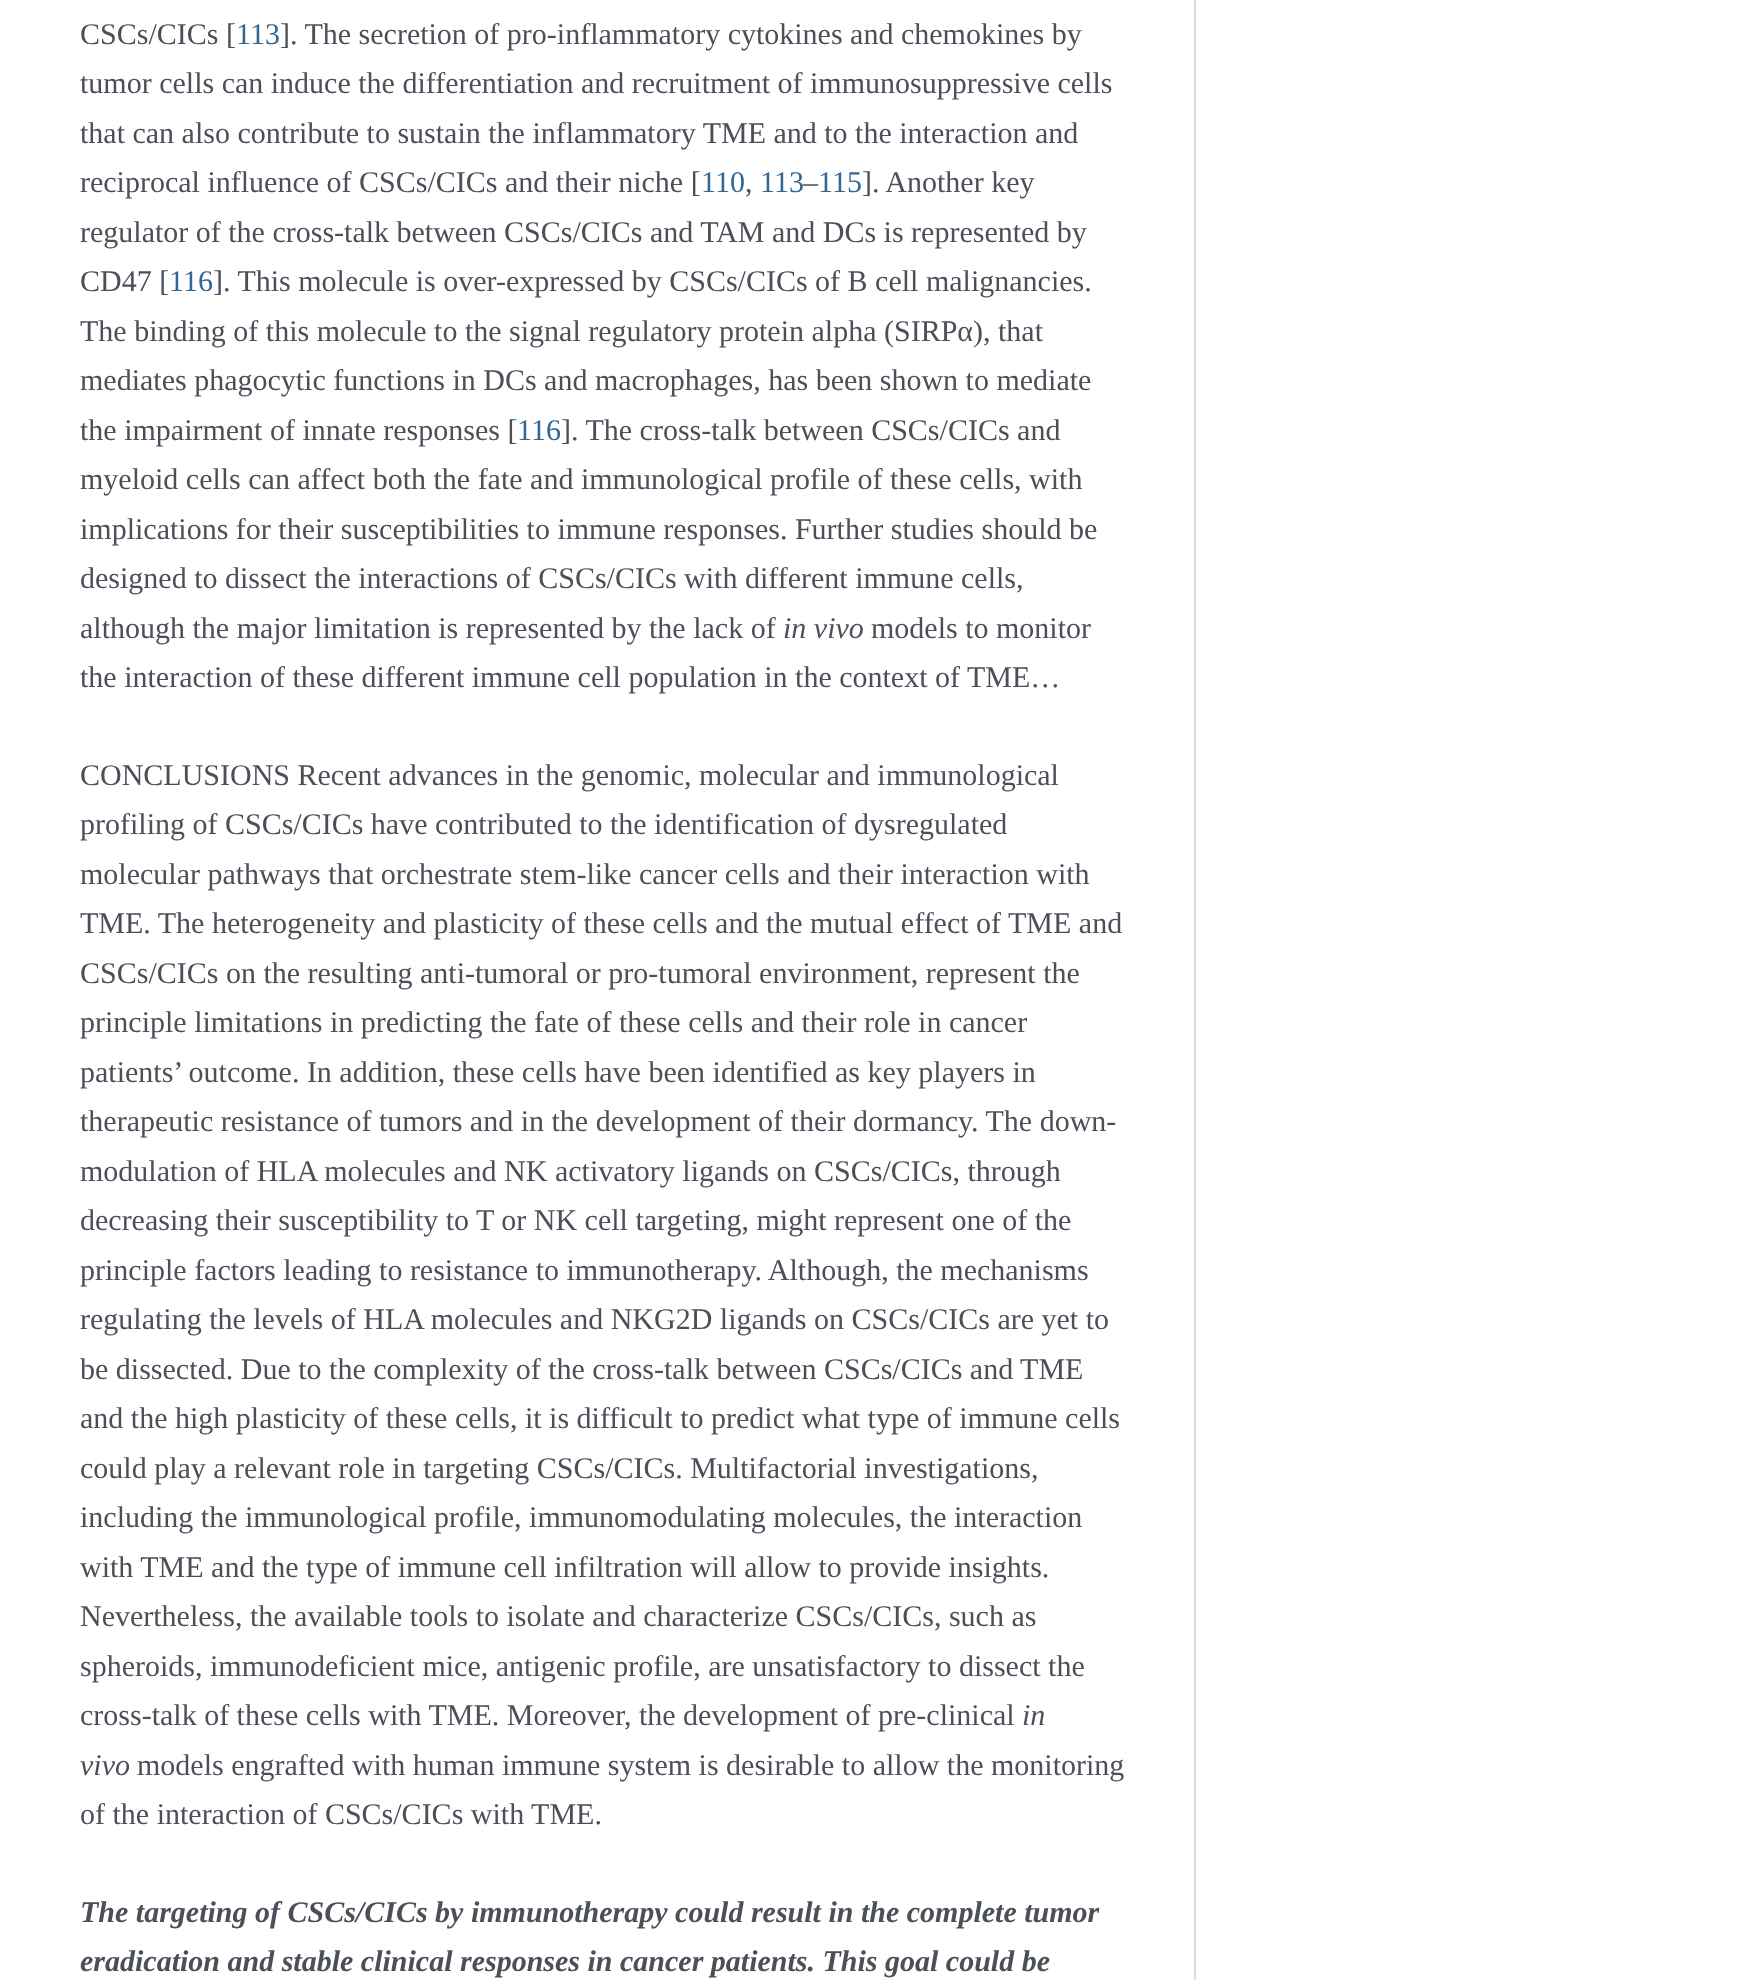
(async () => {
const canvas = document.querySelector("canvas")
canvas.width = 1754
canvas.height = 1980
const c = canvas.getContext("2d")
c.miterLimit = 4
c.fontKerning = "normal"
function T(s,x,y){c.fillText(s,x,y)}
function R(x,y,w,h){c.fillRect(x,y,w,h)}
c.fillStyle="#fff"
R(0,0,1754,1980)
c.fillStyle="#ddd"
R(1194,0,2,1980)
c.font="30px Liberation Serif"
c.fillStyle="#4b4f58"
T("CSCs/CICs [",80,44)
c.fillStyle="#326693"
T("113",236,44)
c.fillStyle="#4b4f58"
T("]. The secretion of pro-inflammatory cytokines and chemokines by",280,44)
T("tumor cells can induce the differentiation and recruitment of immunosuppressive cells",80,93)
T("that can also contribute to sustain the inflammatory TME and to the interaction and",80,143)
T("reciprocal influence of CSCs/CICs and their niche [",80,192)
c.fillStyle="#326693"
T("110",701,192)
T("113",760,192)
c.fillStyle="#4b4f58"
T("–",803,192)
c.fillStyle="#326693"
T("115",818,192)
c.fillStyle="#4b4f58"
T("]. Another key",862,192)
T(",",745,192)
T("regulator of the cross-talk between CSCs/CICs and TAM and DCs is represented by",80,242)
T("CD47 [",80,291)
c.fillStyle="#326693"
T("116",169,291)
c.fillStyle="#4b4f58"
T("]. This molecule is over-expressed by CSCs/CICs of B cell malignancies.",213,291)
T("The binding of this molecule to the signal regulatory protein alpha (SIRPα), that",80,341)
T("mediates phagocytic functions in DCs and macrophages, has been shown to mediate",80,390)
T("the impairment of innate responses [",80,440)
c.fillStyle="#326693"
T("116",517,440)
c.fillStyle="#4b4f58"
T("]. The cross-talk between CSCs/CICs and",561,440)
T("myeloid cells can affect both the fate and immunological profile of these cells, with",80,489)
T("implications for their susceptibilities to immune responses. Further studies should be",80,539)
T("designed to dissect the interactions of CSCs/CICs with different immune cells,",80,588)
T("although the major limitation is represented by the lack of",80,638)
c.font="italic 30px Liberation Serif"
T("in vivo",783,638)
c.font="30px Liberation Serif"
T("models to monitor",871,638)
T("the interaction of these different immune cell population in the context of TME…",80,687)
T("CONCLUSIONS Recent advances in the genomic, molecular and immunological",80,785)
T("profiling of CSCs/CICs have contributed to the identification of dysregulated",80,834)
T("molecular pathways that orchestrate stem-like cancer cells and their interaction with",80,884)
T("TME. The heterogeneity and plasticity of these cells and the mutual effect of TME and",80,933)
T("CSCs/CICs on the resulting anti-tumoral or pro-tumoral environment, represent the",80,983)
T("principle limitations in predicting the fate of these cells and their role in cancer",80,1032)
T("patients’ outcome. In addition, these cells have been identified as key players in",80,1082)
T("therapeutic resistance of tumors and in the development of their dormancy. The down-",80,1131)
T("modulation of HLA molecules and NK activatory ligands on CSCs/CICs, through",80,1181)
T("decreasing their susceptibility to T or NK cell targeting, might represent one of the",80,1230)
T("principle factors leading to resistance to immunotherapy. Although, the mechanisms",80,1280)
T("regulating the levels of HLA molecules and NKG2D ligands on CSCs/CICs are yet to",80,1329)
T("be dissected. Due to the complexity of the cross-talk between CSCs/CICs and TME",80,1379)
T("and the high plasticity of these cells, it is difficult to predict what type of immune cells",80,1428)
T("could play a relevant role in targeting CSCs/CICs. Multifactorial investigations,",80,1478)
T("including the immunological profile, immunomodulating molecules, the interaction",80,1527)
T("with TME and the type of immune cell infiltration will allow to provide insights.",80,1577)
T("Nevertheless, the available tools to isolate and characterize CSCs/CICs, such as",80,1626)
T("spheroids, immunodeficient mice, antigenic profile, are unsatisfactory to dissect the",80,1676)
T("cross-talk of these cells with TME. Moreover, the development of pre-clinical",80,1725)
c.font="italic 30px Liberation Serif"
T("in",1022,1725)
T("vivo",80,1775)
c.font="30px Liberation Serif"
T("models engrafted with human immune system is desirable to allow the monitoring",137,1775)
T("of the interaction of CSCs/CICs with TME.",80,1824)
c.font="italic bold 30px Liberation Serif"
T("The targeting of CSCs/CICs by immunotherapy could result in the complete tumor",80,1922)
T("eradication and stable clinical responses in cancer patients. This goal could be",80,1971)
})()
